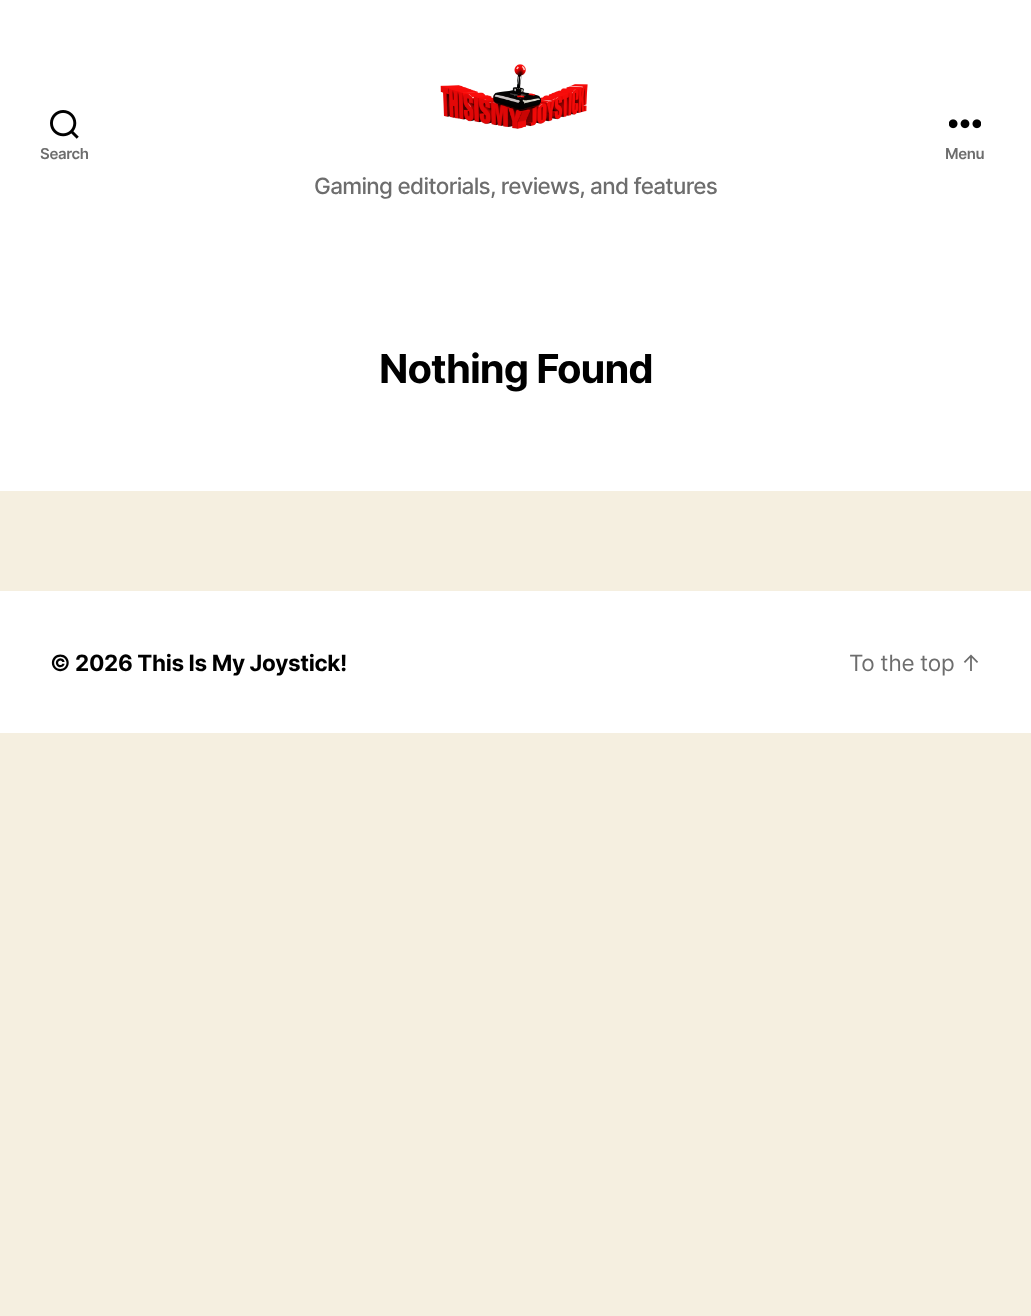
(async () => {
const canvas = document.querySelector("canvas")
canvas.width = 1031
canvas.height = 1316
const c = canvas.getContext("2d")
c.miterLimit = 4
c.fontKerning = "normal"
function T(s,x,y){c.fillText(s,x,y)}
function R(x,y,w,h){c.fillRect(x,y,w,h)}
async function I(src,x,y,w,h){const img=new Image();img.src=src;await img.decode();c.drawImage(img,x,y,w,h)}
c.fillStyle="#f5efe0"
R(0,0,1031,1316)
c.fillStyle="#fff"
R(0,0,1031,491)
await I("1.png",50,110,29,29)
c.letterSpacing="-0.35px"
c.font="600 15px Inter"
c.fillStyle="#6d6d6d"
T("Search",40,159)
await I("2.png",949,119,32,10)
T("Menu",945,159)
await I("3.png",440,64,148,65)
c.letterSpacing="-0.7px"
c.font="500 22.5px Inter"
T("Gaming editorials, reviews, and features",314,194)
c.letterSpacing="-1px"
c.font="bold 40px Inter"
c.fillStyle="#000"
T("Nothing Found",379,383)
c.fillStyle="#fff"
R(0,591,1031,142)
c.letterSpacing="-0.35px"
c.font="bold 22.5px Inter"
c.fillStyle="#000"
T("© 2026 This Is My Joystick!",50,671)
c.font="22.5px Inter"
c.fillStyle="#6d6d6d"
T("To the top ↑",849,671)
})()
